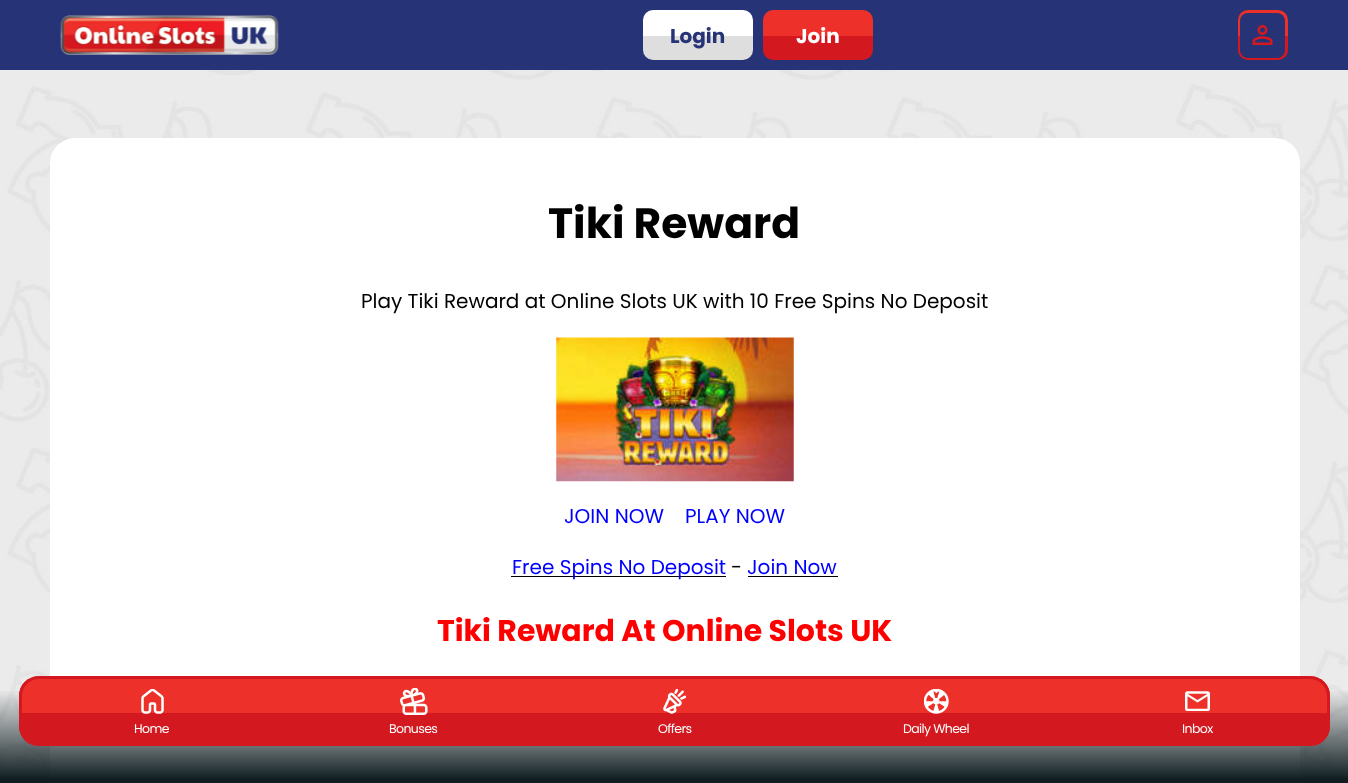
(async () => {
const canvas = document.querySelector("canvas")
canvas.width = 1348
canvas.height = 783
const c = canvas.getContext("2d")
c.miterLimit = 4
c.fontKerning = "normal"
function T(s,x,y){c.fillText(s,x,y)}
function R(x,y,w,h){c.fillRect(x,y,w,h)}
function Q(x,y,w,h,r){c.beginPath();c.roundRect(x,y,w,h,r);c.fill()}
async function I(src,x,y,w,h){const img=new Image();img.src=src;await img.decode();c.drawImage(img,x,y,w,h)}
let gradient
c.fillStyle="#ebebeb"
R(0,0,1348,783)
await I("1.png",0,70,1348,705)
c.fillStyle="#263376"
R(0,0,1348,70)
await I("2.png",60,15,219,40)
c.fillStyle="#dedede"
c.beginPath()
c.roundRect(643,36,110,24,[0,0,10,10])
c.fill()
c.fillStyle="#fff"
c.beginPath()
c.roundRect(643,10,110,26,[10,10,0,0])
c.fill()
c.font="bold 20px Poppins"
c.fillStyle="#263376"
T("Login",670,43)
c.fillStyle="#d3191f"
c.beginPath()
c.roundRect(763,36,110,24,[0,0,10,10])
c.fill()
c.fillStyle="#ed312a"
c.beginPath()
c.roundRect(763,10,110,26,[10,10,0,0])
c.fill()
c.fillStyle="#fff"
T("Join",796,43)
c.fillStyle="#d3191f"
c.beginPath()
c.roundRect(1238,36,50,24,[0,0,10,10])
c.fill()
c.fillStyle="#ed312a"
c.beginPath()
c.roundRect(1238,10,50,26,[10,10,0,0])
c.fill()
c.fillStyle="#263376"
Q(1240,13,45,45,8)
await I("3.png",1252,25,21,20)
c.fillStyle="#fff"
Q(50,138,1250,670,25)
c.font="bold 42.5px Poppins"
c.fillStyle="#000"
T("Tiki Reward",548,238)
c.font="20px Poppins"
T("Play Tiki Reward at Online Slots UK with 10 Free Spins No Deposit",361,308)
await I("4.png",556,337,238,145)
c.fillStyle="#00f"
T("JOIN NOW",564,523)
T("PLAY NOW",685,523)
c.fillStyle="#000"
R(511,576,215,1)
c.fillStyle="#00f"
T("Free Spins No Deposit",512,574)
c.fillStyle="#000"
T("-",731,574)
c.fillStyle="#00f"
T("Join Now",747,574)
c.fillStyle="#000"
R(748,576,90,1)
c.font="bold 30px Poppins"
c.fillStyle="#f00"
T("Tiki Reward At Online Slots UK",437,641)
gradient = c.createLinearGradient(674,676,674,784)
gradient.addColorStop(.12,"#0f1d2100")
gradient.addColorStop(.96,"#0f1d21")
c.fillStyle = gradient
R(0,691,1348,92)
c.save()
c.beginPath()
c.roundRect(19,676,1311,70,20)
c.clip()
c.fillStyle="#d3191f"
R(19,713,1311,31)
c.fillStyle="#ed312a"
R(19,679,1311,34)
c.restore()
c.beginPath()
c.roundRect(20.5,677.5,1308,67,18.5)
c.strokeStyle="#d3191f"
c.lineWidth=3
c.stroke()
await I("5.png",141,689,23,25)
c.letterSpacing="-0.6px"
c.font="12.5px Poppins"
c.fillStyle="#fff"
T("Home",134,733)
await I("6.png",400,688,28,27)
T("Bonuses",389,733)
await I("7.png",663,689,23,25)
T("Offers",658,733)
await I("8.png",924,689,25,25)
T("Daily Wheel",903,733)
await I("9.png",1185,691,25,20)
T("Inbox",1182,733)
})()
